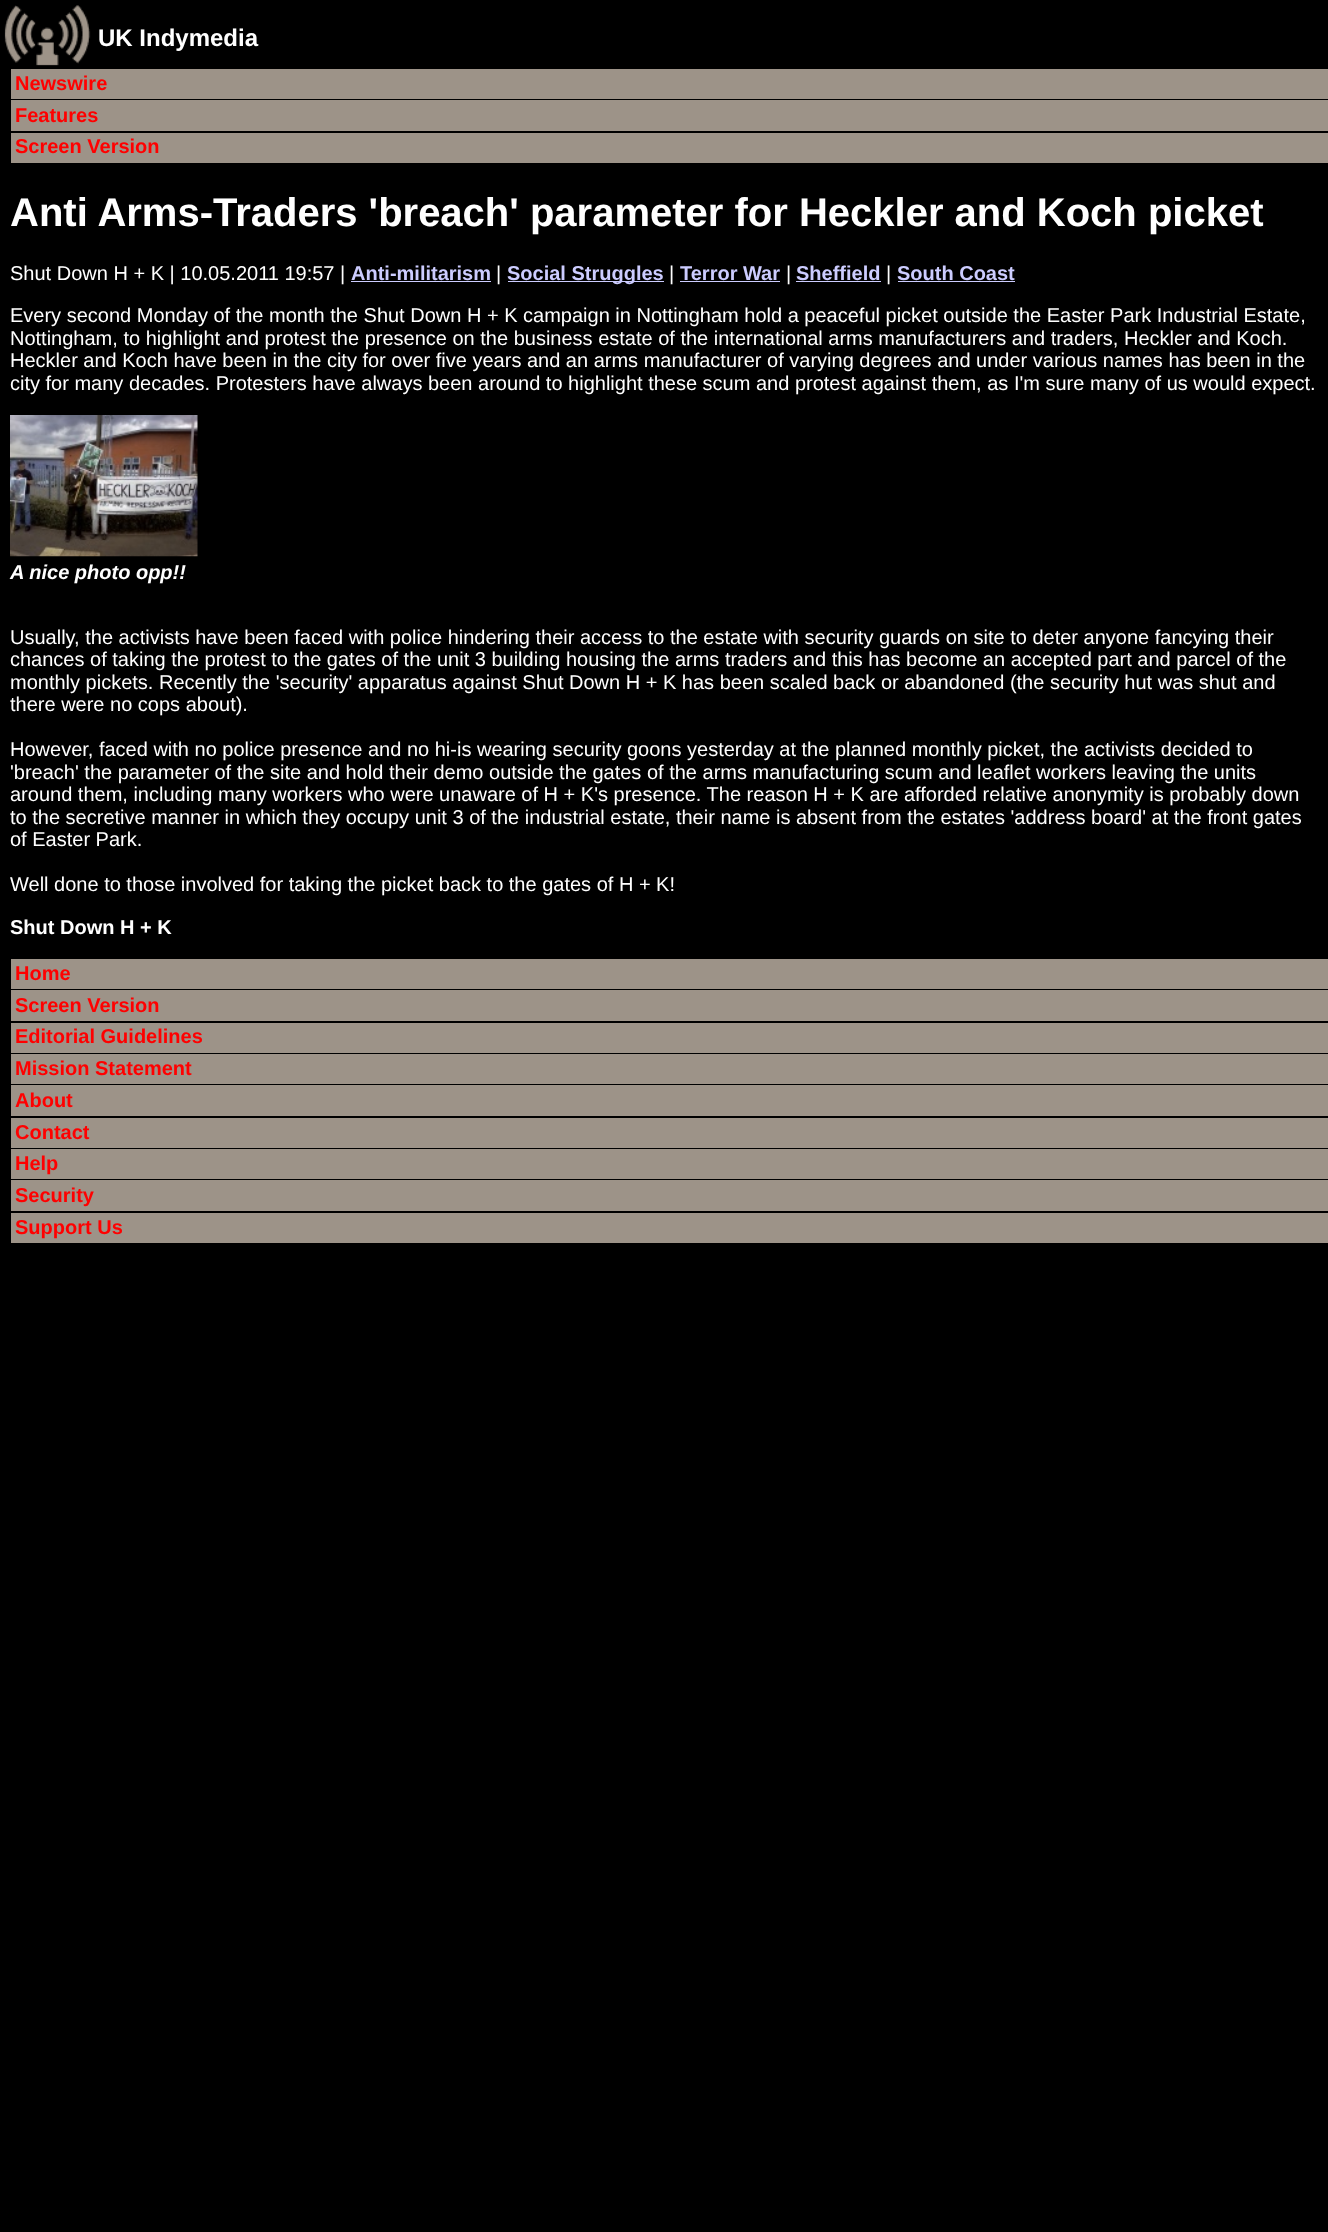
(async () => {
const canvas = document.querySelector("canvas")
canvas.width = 1328
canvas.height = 2232
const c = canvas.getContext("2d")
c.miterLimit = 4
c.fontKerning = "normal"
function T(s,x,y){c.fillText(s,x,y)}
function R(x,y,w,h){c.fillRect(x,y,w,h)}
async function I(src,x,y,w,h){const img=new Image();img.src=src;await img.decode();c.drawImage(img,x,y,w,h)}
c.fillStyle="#000"
R(0,0,1328,2232)
await I("1.png",4,5,87,61)
c.font="bold 24px Liberation Sans"
c.fillStyle="#fff"
T("UK Indymedia",98,46)
c.fillStyle="#9d9388"
R(11,69,1317,30)
c.font="bold 20px Liberation Sans"
c.fillStyle="#f00"
T("Newswire",15,90)
c.fillStyle="#9d9388"
R(11,100,1317,31)
c.fillStyle="#f00"
T("Features",15,122)
c.fillStyle="#9d9388"
R(11,133,1317,30)
c.fillStyle="#f00"
T("Screen Version",15,153)
c.font="bold 40px Liberation Sans"
c.fillStyle="#fff"
T("Anti Arms-Traders 'breach' parameter for Heckler and Koch picket",10,226)
c.font="20px Liberation Sans"
T("Shut Down H + K | 10.05.2011 19:57 |",10,280)
c.font="bold 20px Liberation Sans"
c.fillStyle="#ccf"
T("Anti-militarism",351,280)
R(351,281,140,1)
c.font="20px Liberation Sans"
c.fillStyle="#fff"
T("|",496,280)
c.fillStyle="#ccf"
R(508,281,156,1)
c.font="bold 20px Liberation Sans"
T("Social Struggles",507,280)
c.font="20px Liberation Sans"
c.fillStyle="#fff"
T("|",669,280)
c.font="bold 20px Liberation Sans"
c.fillStyle="#ccf"
T("Terror War",680,280)
R(680,281,100,1)
c.font="20px Liberation Sans"
c.fillStyle="#fff"
T("|",786,280)
c.font="bold 20px Liberation Sans"
c.fillStyle="#ccf"
T("Sheffield",796,280)
R(796,281,85,1)
c.font="20px Liberation Sans"
c.fillStyle="#fff"
T("|",886,280)
c.font="bold 20px Liberation Sans"
c.fillStyle="#ccf"
T("South Coast",897,280)
R(898,281,117,1)
c.font="20px Liberation Sans"
c.fillStyle="#fff"
T("Every second Monday of the month the Shut Down H + K campaign in Nottingham hold a peaceful picket outside the Easter Park Industrial Estate,",10,322)
T("Nottingham, to highlight and protest the presence on the business estate of the international arms manufacturers and traders, Heckler and Koch.",10,345)
T("Heckler and Koch have been in the city for over five years and an arms manufacturer of varying degrees and under various names has been in the",10,367)
T("city for many decades. Protesters have always been around to highlight these scum and protest against them, as I'm sure many of us would expect.",10,390)
await I("2.png",10,415,188,142)
c.font="italic bold 20px Liberation Sans"
T("A nice photo opp!!",10,579)
c.font="20px Liberation Sans"
T("Usually, the activists have been faced with police hindering their access to the estate with security guards on site to deter anyone fancying their",10,644)
T("chances of taking the protest to the gates of the unit 3 building housing the arms traders and this has become an accepted part and parcel of the",10,666)
T("monthly pickets. Recently the 'security' apparatus against Shut Down H + K has been scaled back or abandoned (the security hut was shut and",10,689)
T("there were no cops about).",10,711)
T("However, faced with no police presence and no hi-is wearing security goons yesterday at the planned monthly picket, the activists decided to",10,756)
T("'breach' the parameter of the site and hold their demo outside the gates of the arms manufacturing scum and leaflet workers leaving the units",10,779)
T("around them, including many workers who were unaware of H + K's presence. The reason H + K are afforded relative anonymity is probably down",10,801)
T("to the secretive manner in which they occupy unit 3 of the industrial estate, their name is absent from the estates 'address board' at the front gates",10,824)
T("of Easter Park.",10,846)
T("Well done to those involved for taking the picket back to the gates of H + K!",10,891)
c.font="bold 20px Liberation Sans"
T("Shut Down H + K",10,934)
c.fillStyle="#9d9388"
R(11,959,1317,30)
c.fillStyle="#f00"
T("Home",15,980)
c.fillStyle="#9d9388"
R(11,990,1317,31)
c.fillStyle="#f00"
T("Screen Version",15,1012)
c.fillStyle="#9d9388"
R(11,1023,1317,30)
c.fillStyle="#f00"
T("Editorial Guidelines",15,1043)
c.fillStyle="#9d9388"
R(11,1054,1317,30)
c.fillStyle="#f00"
T("Mission Statement",15,1075)
c.fillStyle="#9d9388"
R(11,1085,1317,31)
c.fillStyle="#f00"
T("About",15,1107)
c.fillStyle="#9d9388"
R(11,1118,1317,30)
c.fillStyle="#f00"
T("Contact",15,1139)
c.fillStyle="#9d9388"
R(11,1149,1317,30)
c.fillStyle="#f00"
T("Help",15,1170)
c.fillStyle="#9d9388"
R(11,1180,1317,31)
c.fillStyle="#f00"
T("Security",15,1202)
c.fillStyle="#9d9388"
R(11,1213,1317,30)
c.fillStyle="#f00"
T("Support Us",15,1234)
})()
